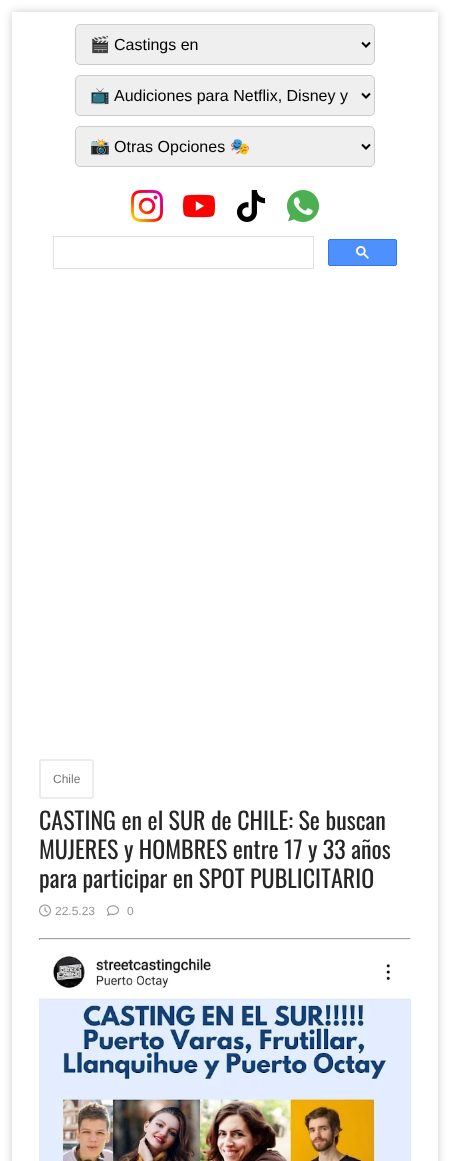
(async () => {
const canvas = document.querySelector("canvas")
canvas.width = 450
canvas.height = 1161
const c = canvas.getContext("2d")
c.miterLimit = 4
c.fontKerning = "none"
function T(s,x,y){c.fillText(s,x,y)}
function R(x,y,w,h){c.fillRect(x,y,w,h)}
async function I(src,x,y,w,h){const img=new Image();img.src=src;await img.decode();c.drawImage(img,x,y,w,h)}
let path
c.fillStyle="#fff"
R(0,0,450,1161)
c.save()
path = new Path2D("M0 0h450v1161h-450zm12 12h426v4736h-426z")
c.clip(path,"evenodd")
c.fillStyle="#00000033"
c.filter="blur(4px)"
c.beginPath()
c.rect(12,12,426,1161)
c.fill()
c.filter="none"
c.restore()
c.fillStyle="#efefef"
c.beginPath()
c.roundRect(75.5,24.5,299,40,4.5)
c.fill()
c.strokeStyle="#ccc"
c.stroke()
path = new Path2D("M362 42.5l4 4l4-4")
c.strokeStyle="#000"
c.lineWidth=2
c.stroke(path)
c.font="16px Noto Color Emoji"
c.fillStyle="#000"
T("🎬",90,50)
c.font="16px Liberation Sans"
T("Castings en",114,50)
c.fillStyle="#efefef"
c.beginPath()
c.roundRect(75.5,75.5,299,40,4.5)
c.fill()
c.strokeStyle="#ccc"
c.lineWidth=1
c.stroke()
path = new Path2D("M362 93.5l4 4l4-4")
c.strokeStyle="#000"
c.lineWidth=2
c.stroke(path)
c.font="16px Noto Color Emoji"
c.fillStyle="#000"
T("📺",90,101)
c.font="16px Liberation Sans"
T("Audiciones para Netflix, Disney y",114,101)
c.fillStyle="#efefef"
c.beginPath()
c.roundRect(75.5,126.5,299,40,4.5)
c.fill()
c.strokeStyle="#ccc"
c.lineWidth=1
c.stroke()
path = new Path2D("M362 144.5l4 4l4-4")
c.strokeStyle="#000"
c.lineWidth=2
c.stroke(path)
c.font="16px Noto Color Emoji"
c.fillStyle="#000"
T("📸",90,152)
c.font="16px Liberation Sans"
T("Otras Opciones",114,152)
c.font="16px Noto Color Emoji"
T("🎭",230,152)
await I("1.png",131,190,32,32)
await I("2.png",183,194,32,24)
await I("3.png",237,190,29,32)
await I("4.png",287,190,32,32)
c.strokeStyle="#dfe1e5"
c.lineWidth=1
c.strokeRect(53.5,236.5,260,32)
c.fillStyle="#4d90fe"
c.beginPath()
c.roundRect(328.5,239.5,68,26,1.5)
c.fill()
c.strokeStyle="#3079ed"
c.stroke()
await I("5.png",356,246,13,13)
c.beginPath()
c.roundRect(40,760,53,38,2)
c.strokeStyle="#ececec"
c.lineWidth=2
c.stroke()
c.font="12px Liberation Sans"
c.fillStyle="#757575"
T("Chile",53,783)
c.font="24px Oswald"
c.fillStyle="#262626"
T("CASTING en el SUR de CHILE: Se buscan",39,830)
T("MUJERES y HOMBRES entre 17 y 33 años",39,859)
T("para participar en SPOT PUBLICITARIO",39,888)
await I("6.png",39,904,12,13)
c.font="12px Liberation Sans"
c.fillStyle="#979797"
T("22.5.23",55,915)
await I("7.png",107,905,12,11)
T("0",127,915)
c.fillStyle="#9f9f9f"
R(39,938,372,1)
c.fillStyle="#eee"
R(410,938,1,2)
R(39,939,372,1)
c.fillStyle="#9f9f9f"
R(39,938,1,2)
await I("8.png",39,955,372,206)
})()
